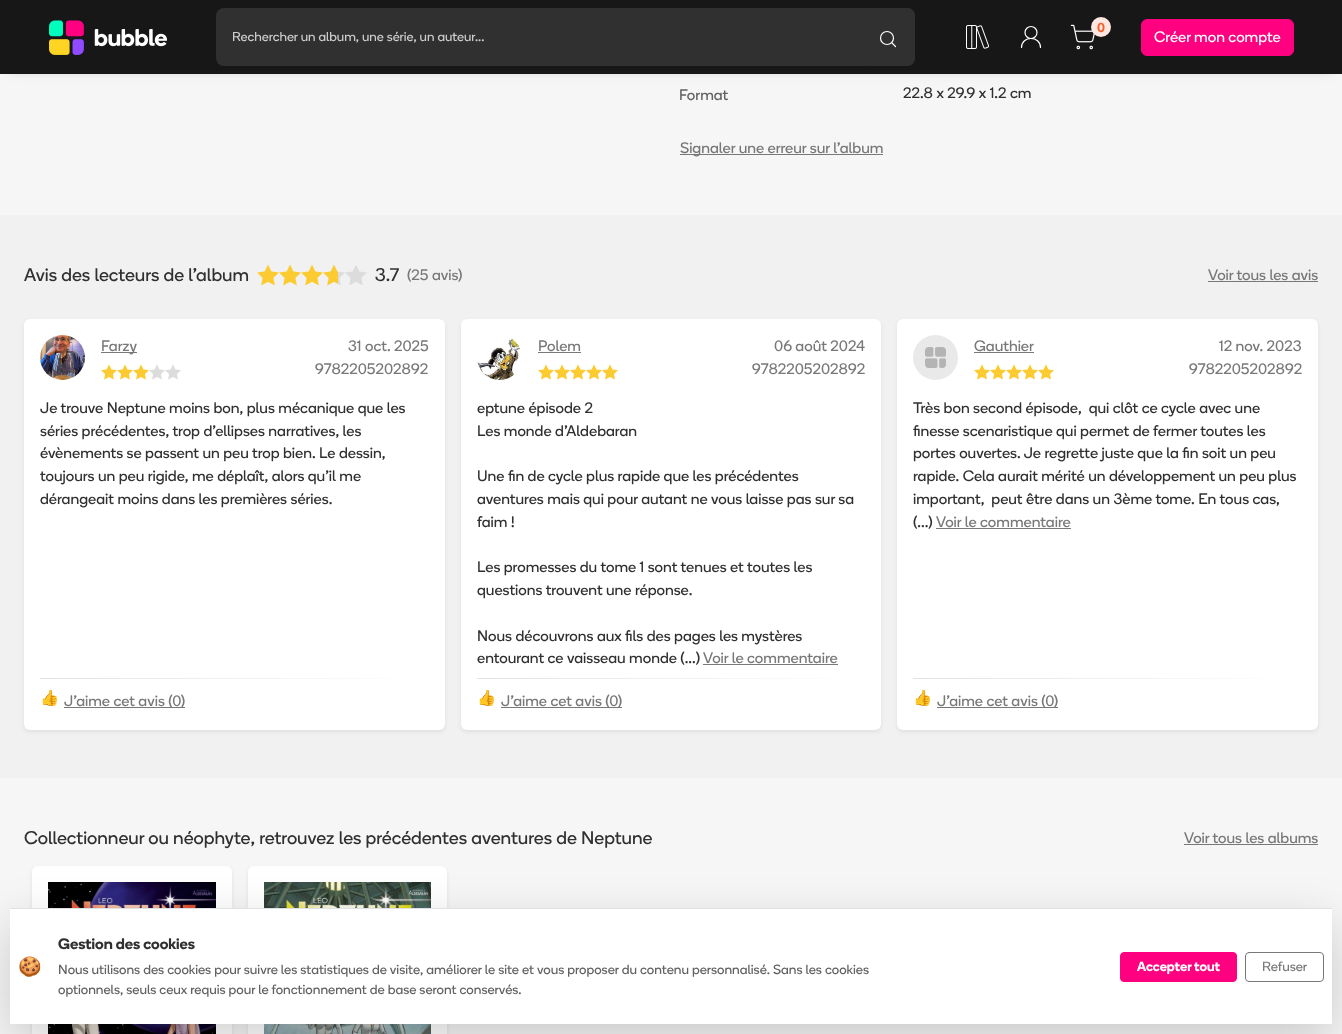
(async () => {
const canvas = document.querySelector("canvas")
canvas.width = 1342
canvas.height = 1034
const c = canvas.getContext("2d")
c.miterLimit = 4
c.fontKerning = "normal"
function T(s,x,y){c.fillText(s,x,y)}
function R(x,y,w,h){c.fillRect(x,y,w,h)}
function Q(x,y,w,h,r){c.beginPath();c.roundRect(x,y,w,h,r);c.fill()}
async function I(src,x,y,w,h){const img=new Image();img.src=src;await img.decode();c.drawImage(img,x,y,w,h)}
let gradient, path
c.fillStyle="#f6f6f6"
R(0,0,1342,1034)
c.fillStyle="#00000033"
c.filter="blur(6.5px)"
c.beginPath()
c.rect(9,14,1324,56)
c.fill()
c.filter="none"
c.fillStyle="#171717"
R(0,0,1342,74)
await I("1.png",49,20,118,35)
c.fillStyle="#303030"
Q(216,8,699,58,8)
c.font="13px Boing"
c.fillStyle="#ccc"
T("Rechercher un album, une série, un auteur...",232,41)
c.fillStyle="#303030"
Q(861,8,54,58,8)
path = new Path2D("M895.5 46.5l-3.5-3.5")
c.strokeStyle="#fff"
c.lineWidth=1.2
c.lineCap="round"
c.lineJoin="round"
c.stroke(path)
c.beginPath()
c.arc(887,38,6.5,0,7)
c.stroke()
await I("2.png",966,25,23,24)
c.beginPath()
c.arc(1031,32.5,6,0,7)
c.stroke()
path = new Path2D("M1040.5 47.5c0-12-19-12-19 0")
c.stroke(path)
await I("3.png",1070,24,25,26)
c.fillStyle="#fde7e0"
c.beginPath()
c.arc(1101,27,10,0,7)
c.fill()
c.font="600 13px Boing"
c.fillStyle="#f75f2b"
T("0",1097,32)
c.fillStyle="#ff0080"
c.beginPath()
c.roundRect(1141.5,19.5,152,36,5.5)
c.fill()
c.strokeStyle="#ff0080"
c.lineWidth=1
c.lineJoin="miter"
c.stroke()
c.font="15.2px Boing"
c.fillStyle="#fff"
T("Créer mon compte",1154,42)
c.fillStyle="#626262"
T("Format",679,100)
c.fillStyle="#303030"
T("22.8 x 29.9 x 1.2 cm",903,98)
c.fillStyle="#787878"
R(680,154,203,1)
T("Signaler une erreur sur l'album",680,153)
c.fillStyle="#f1f1f1"
R(0,215,1342,563)
c.font="18.4px Boing"
c.fillStyle="#303030"
T("Avis des lecteurs de l'album",24,281)
await I("4.png",257,264,22,22)
await I("4.png",279,264,22,22)
await I("4.png",301,264,22,22)
await I("5.png",323,264,22,22)
await I("6.png",345,265,22,20)
T("3.7",375,281)
c.font="15.2px Boing"
c.fillStyle="#787878"
T("(25 avis)",407,280)
T("Voir tous les avis",1208,280)
R(1208,281,110,1)
c.fillStyle="#00000012"
c.filter="blur(2px)"
c.beginPath()
c.roundRect(24,321,421,411,6)
c.fill()
c.filter="none"
c.fillStyle="#fff"
Q(24,319,421,411,6)
await I("7.png",40,335,45,45)
c.fillStyle="#787878"
R(101,352,36,1)
T("Farzy",101,351)
await I("8.png",101,364,16,16)
await I("8.png",117,364,16,16)
await I("8.png",133,364,16,16)
await I("9.png",149,365,16,15)
await I("9.png",165,365,16,15)
T("31 oct. 2025",348,351)
T("9782205202892",315,374)
c.fillStyle="#303030"
T("Je trouve Neptune moins bon, plus mécanique que les",40,413)
T("séries précédentes, trop d'ellipses narratives, les",40,436)
T("évènements se passent un peu trop bien. Le dessin,",40,458)
T("toujours un peu rigide, me déplaît, alors qu'il me",40,481)
T("dérangeait moins dans les premières séries.",40,504)
gradient = c.createLinearGradient(40,679,429,679)
gradient.addColorStop(0,"#e2e2e2")
gradient.addColorStop(1,"#fff")
c.fillStyle = gradient
R(40,678,355,1)
c.font="15.2px Noto Color Emoji"
c.fillStyle="#303030"
T("👍",40,703)
c.fillStyle="#787878"
R(64,707,121,1)
c.font="15.2px Boing"
T("J'aime cet avis (0)",64,706)
c.fillStyle="#00000012"
c.filter="blur(2px)"
c.beginPath()
c.roundRect(461,321,420,411,6)
c.fill()
c.filter="none"
c.fillStyle="#fff"
Q(461,319,420,411,6)
await I("10.png",477,338,44,42)
c.fillStyle="#787878"
T("Polem",538,351)
R(538,352,43,1)
await I("8.png",538,364,16,16)
await I("8.png",554,364,16,16)
await I("8.png",570,364,16,16)
await I("8.png",586,364,16,16)
await I("8.png",602,364,16,16)
T("06 août 2024",774,351)
T("9782205202892",752,374)
c.fillStyle="#303030"
T("eptune épisode 2",477,413)
T("Les monde d'Aldebaran",477,436)
T("Une fin de cycle plus rapide que les précédentes",477,481)
T("aventures mais qui pour autant ne vous laisse pas sur sa",477,504)
T("faim !",477,527)
T("Les promesses du tome 1 sont tenues et toutes les",477,572)
T("questions trouvent une réponse.",477,595)
T("Nous découvrons aux fils des pages les mystères",477,641)
T("entourant ce vaisseau monde (...)",477,663)
c.fillStyle="#787878"
T("Voir le commentaire",703,663)
R(703,664,135,1)
gradient = c.createLinearGradient(477,679,865,679)
gradient.addColorStop(0,"#e2e2e2")
gradient.addColorStop(1,"#fff")
c.fillStyle = gradient
R(477,678,355,1)
c.font="15.2px Noto Color Emoji"
c.fillStyle="#303030"
T("👍",477,703)
c.fillStyle="#787878"
R(501,707,121,1)
c.font="15.2px Boing"
T("J'aime cet avis (0)",501,706)
c.fillStyle="#00000012"
c.filter="blur(2px)"
c.beginPath()
c.roundRect(897,321,421,411,6)
c.fill()
c.filter="none"
c.fillStyle="#fff"
Q(897,319,421,411,6)
await I("11.png",913,335,45,45)
c.fillStyle="#787878"
T("Gauthier",974,351)
R(974,352,60,1)
await I("8.png",974,364,16,16)
await I("8.png",990,364,16,16)
await I("8.png",1006,364,16,16)
await I("8.png",1022,364,16,16)
await I("8.png",1038,364,16,16)
T("12 nov. 2023",1219,351)
T("9782205202892",1189,374)
c.fillStyle="#303030"
T("Très bon second épisode,  qui clôt ce cycle avec une",913,413)
T("finesse scenaristique qui permet de fermer toutes les",913,436)
T("portes ouvertes. Je regrette juste que la fin soit un peu",913,458)
T("rapide. Cela aurait mérité un développement un peu plus",913,481)
T("important,  peut être dans un 3ème tome. En tous cas,",913,504)
T("(...)",913,527)
c.fillStyle="#787878"
T("Voir le commentaire",936,527)
R(936,528,135,1)
gradient = c.createLinearGradient(913,679,1302,679)
gradient.addColorStop(0,"#e2e2e2")
gradient.addColorStop(1,"#fff")
c.fillStyle = gradient
R(913,678,355,1)
c.font="15.2px Noto Color Emoji"
c.fillStyle="#303030"
T("👍",913,703)
c.fillStyle="#787878"
R(937,707,121,1)
c.font="15.2px Boing"
T("J'aime cet avis (0)",937,706)
c.font="18.4px Boing"
c.fillStyle="#303030"
T("Collectionneur ou néophyte, retrouvez les précédentes aventures de Neptune",24,844)
c.font="15.2px Boing"
c.fillStyle="#787878"
T("Voir tous les albums",1184,843)
R(1184,844,134,1)
c.fillStyle="#00000014"
c.filter="blur(2px)"
c.beginPath()
c.roundRect(32,868,200,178,6)
c.fill()
c.filter="none"
c.fillStyle="#fff"
Q(32,866,200,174,6)
await I("12.png",48,882,168,152)
c.fillStyle="#00000014"
c.filter="blur(2px)"
c.beginPath()
c.roundRect(248,868,199,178,6)
c.fill()
c.filter="none"
c.fillStyle="#fff"
Q(248,866,199,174,6)
await I("13.png",264,882,167,152)
c.fillStyle="#0000002e"
c.filter="blur(24px)"
c.beginPath()
c.rect(10,924,1322,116)
c.fill()
c.filter="none"
c.fillStyle="#fff"
R(10,909,1322,115)
c.fillStyle="#dee2e6"
R(10,908,1322,1)
c.font="19px Noto Color Emoji"
c.fillStyle="#303030"
T("🍪",18,973)
c.font="600 15.2px Boing"
T("Gestion des cookies",58,949)
c.font="13.3px Boing"
c.fillStyle="#626262"
T("Nous utilisons des cookies pour suivre les statistiques de visite, améliorer le site et vous proposer du contenu personnalisé. Sans les cookies",58,974)
T("optionnels, seuls ceux requis pour le fonctionnement de base seront conservés.",58,994)
c.fillStyle="#ff0080"
c.beginPath()
c.roundRect(1120.5,952.5,116,29,3.5)
c.fill()
c.stroke()
c.font="600 13.3px Boing"
c.fillStyle="#fff"
T("Accepter tout",1137,971)
c.beginPath()
c.roundRect(1245.5,952.5,78,29,3.5)
c.strokeStyle="#787878"
c.stroke()
c.font="13.3px Boing"
c.fillStyle="#787878"
T("Refuser",1262,971)
})()
